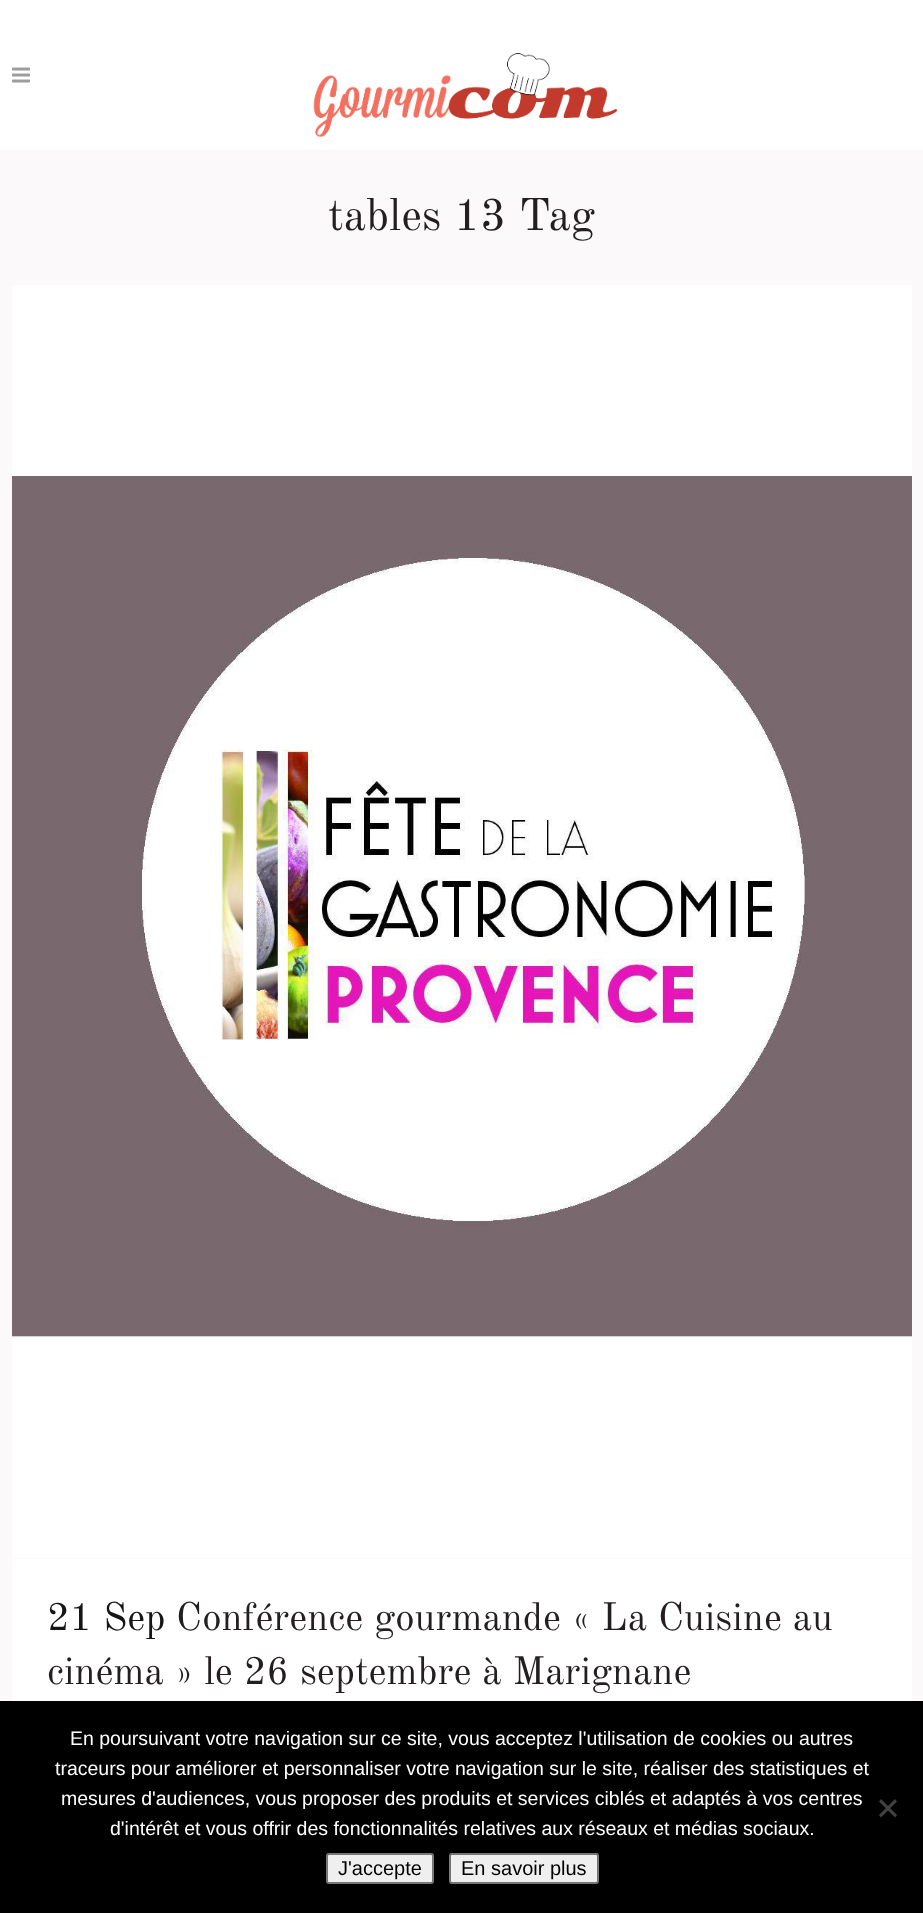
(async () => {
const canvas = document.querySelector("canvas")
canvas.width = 923
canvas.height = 1913
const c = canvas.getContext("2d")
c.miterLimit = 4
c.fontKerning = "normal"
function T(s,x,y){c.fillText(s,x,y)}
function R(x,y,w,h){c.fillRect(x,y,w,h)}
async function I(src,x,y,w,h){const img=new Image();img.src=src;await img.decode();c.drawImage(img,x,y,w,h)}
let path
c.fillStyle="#fbf9f9"
R(0,0,923,1913)
c.fillStyle="#fff"
R(0,0,923,150)
await I("1.png",12,67,18,16)
await I("2.png",313,53,305,85)
c.font="45px Old Standard TT"
c.fillStyle="#231f20"
T("tables 13 Tag",328,230)
await I("3.png",12,285,900,1273)
c.fillStyle="#fff"
R(12,1559,900,142)
c.font="39px Old Standard TT"
c.fillStyle="#161414"
T("21 Sep",47,1630)
c.fillStyle="#231f20"
T("Conférence gourmande « La Cuisine au",176,1630)
T("cinéma » le 26 septembre à Marignane",47,1684)
c.fillStyle="#000"
R(0,1701,923,212)
c.font="19.5px Liberation Sans"
c.fillStyle="#fff"
T("En poursuivant votre navigation sur ce site, vous acceptez l'utilisation de cookies ou autres",70,1745)
T("traceurs pour améliorer et personnaliser votre navigation sur le site, réaliser des statistiques et",55,1775)
T("mesures d'audiences, vous proposer des produits et services ciblés et adaptés à vos centres",61,1805)
T("d'intérêt et vous offrir des fonctionnalités relatives aux réseaux et médias sociaux.",110,1835)
c.fillStyle="#404040"
path = new Path2D("M895 1799l2 2.5l-16 16l-2-2.5z")
c.fill(path)
path = new Path2D("M879 1801.5l2-2.5l16 16l-2 2.5z")
c.fill(path)
c.fillStyle="#efefef"
c.beginPath()
c.roundRect(327,1854,106,29,2)
c.fill()
c.strokeStyle="#767676"
c.lineWidth=2
c.stroke()
c.font="20px Liberation Sans"
c.fillStyle="#000"
T("J'accepte",338,1875)
c.fillStyle="#efefef"
c.beginPath()
c.roundRect(450,1854,148,29,2)
c.fill()
c.stroke()
c.fillStyle="#000"
T("En savoir plus",461,1875)
})()
